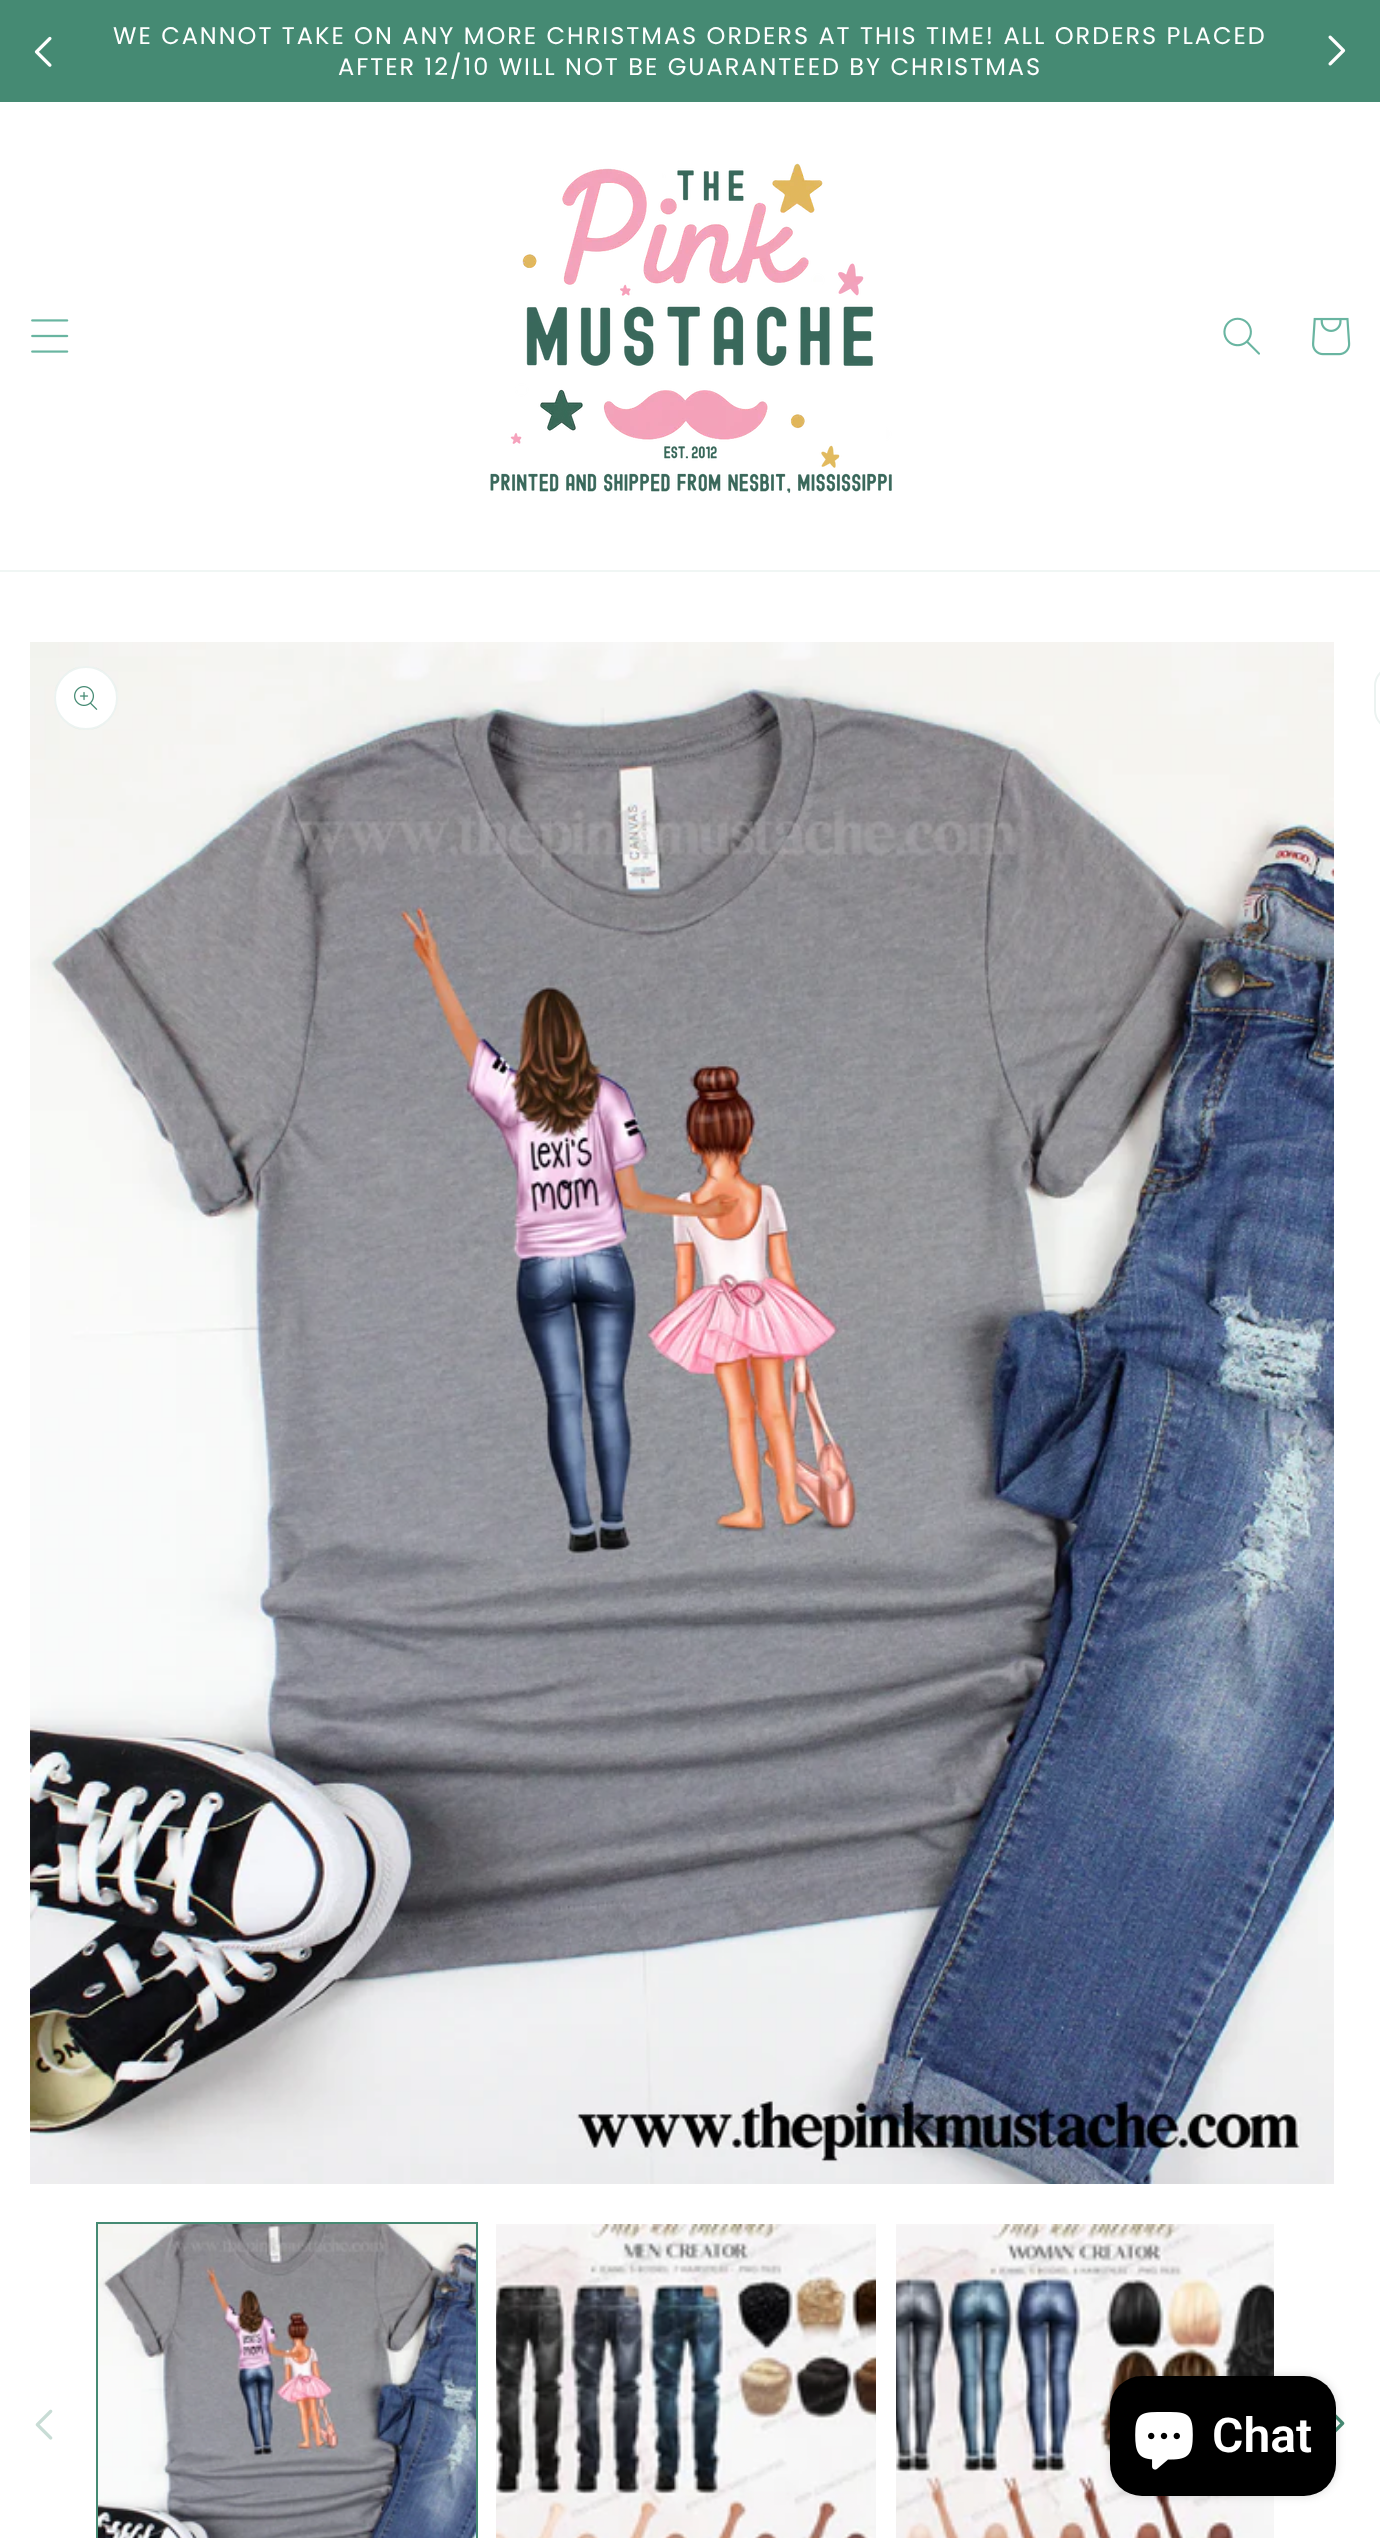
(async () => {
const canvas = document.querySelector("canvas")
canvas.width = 1380
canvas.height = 2538
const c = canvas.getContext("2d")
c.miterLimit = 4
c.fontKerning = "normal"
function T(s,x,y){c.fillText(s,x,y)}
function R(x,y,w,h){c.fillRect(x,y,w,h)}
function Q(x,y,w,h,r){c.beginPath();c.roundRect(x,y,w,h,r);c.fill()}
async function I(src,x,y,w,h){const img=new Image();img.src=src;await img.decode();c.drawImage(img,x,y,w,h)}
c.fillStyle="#fff"
R(0,0,1380,2538)
c.fillStyle="#458a73"
R(0,0,1380,102)
await I("1.png",34,36,18,31)
c.letterSpacing="2px"
c.font="24px Poppins"
c.fillStyle="#fff"
T("WE CANNOT TAKE ON ANY MORE CHRISTMAS ORDERS AT THIS TIME! ALL ORDERS PLACED",113,44)
T("AFTER 12/10 WILL NOT BE GUARANTEED BY CHRISTMAS",338,75)
await I("2.png",1328,35,18,31)
c.fillStyle="#f0f6f4"
R(0,570,1380,2)
await I("3.png",31,319,38,34)
await I("4.png",490,163,402,330)
await I("5.png",1223,317,37,38)
await I("6.png",1312,317,39,39)
await I("7.png",30,642,1304,1542)
c.fillStyle="#fff"
c.beginPath()
c.arc(86,698,32,0,7)
c.fill()
c.beginPath()
c.arc(86,698,31,0,7)
c.strokeStyle="#458a731a"
c.lineWidth=2
c.stroke()
await I("8.png",74,686,24,24)
c.beginPath()
c.roundRect(1375,667,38,62,31)
c.strokeStyle="#ecf3f1"
c.stroke()
await I("9.png",35,2409,18,31)
c.strokeStyle="#458a73"
c.strokeRect(97,2223,380,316)
await I("10.png",98,2224,378,314)
await I("11.png",496,2224,380,314)
await I("12.png",896,2224,378,314)
await I("13.png",1336,2414,9,19)
c.fillStyle="#00000026"
c.filter="blur(5px)"
c.beginPath()
c.roundRect(1110,2376,226,120,32)
c.fill()
c.filter="none"
c.fillStyle="#000"
Q(1110,2376,226,120,32)
await I("14.png",1135,2412,58,58)
c.letterSpacing="0px"
c.font="600 48px Roboto"
c.fillStyle="#fff"
T("Chat",1212,2452)
})()
